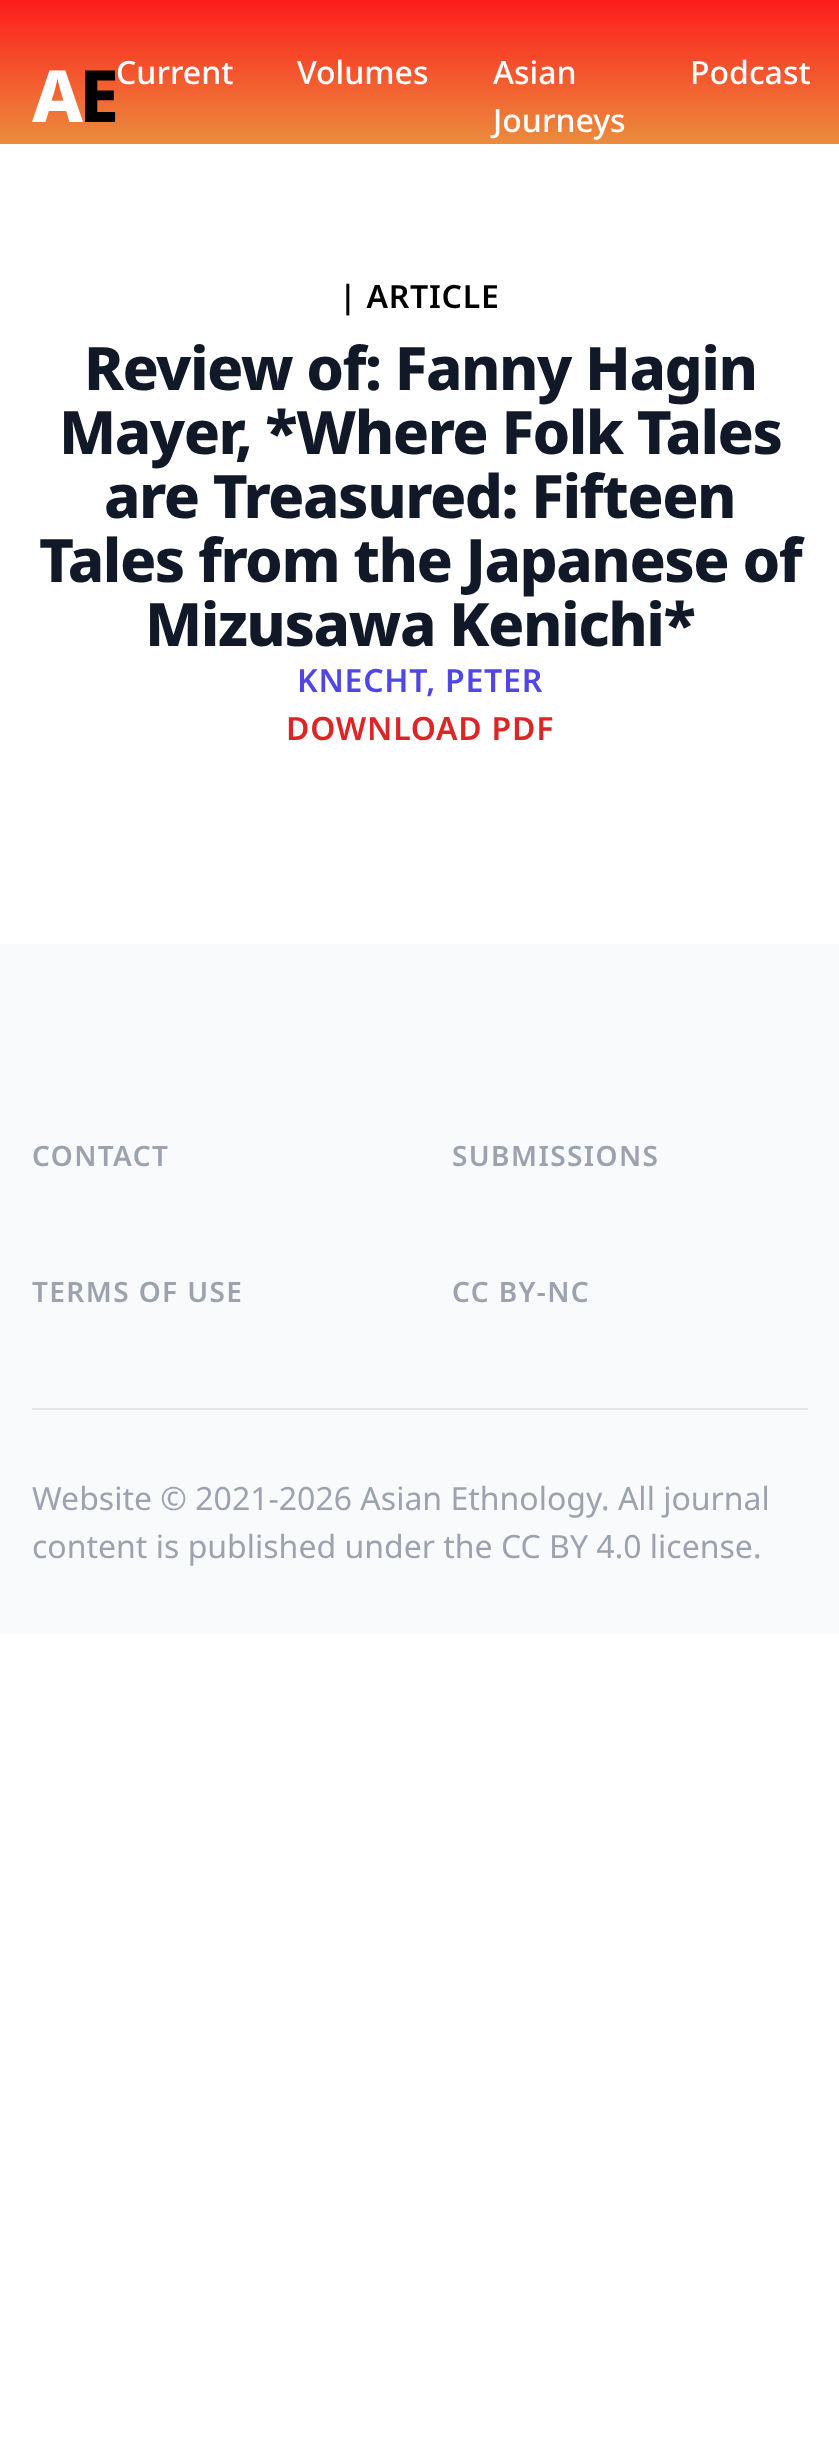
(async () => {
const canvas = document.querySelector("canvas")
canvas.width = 839
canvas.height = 2439
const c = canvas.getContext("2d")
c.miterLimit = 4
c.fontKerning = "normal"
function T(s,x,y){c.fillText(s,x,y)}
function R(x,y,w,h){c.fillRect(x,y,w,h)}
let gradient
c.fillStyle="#fff"
R(0,0,839,2439)
gradient = c.createLinearGradient(420,144,420,0)
gradient.addColorStop(0,"#eb8c3d")
gradient.addColorStop(1,"#fd1d1d")
c.fillStyle = gradient
R(0,0,839,144)
c.letterSpacing="-4px"
c.font="800 72px Noto Sans"
c.fillStyle="#fff"
T("A",32,122)
c.fillStyle="#000"
T("E",79,122)
c.letterSpacing="0px"
c.font="500 32px Noto Sans"
c.fillStyle="#fff"
T("Current",116,84)
T("Volumes",297,84)
T("Asian",493,84)
T("Journeys",493,132)
T("Podcast",690,84)
c.letterSpacing="0.75px"
c.font="600 32px Noto Sans"
c.fillStyle="#000"
T("| ARTICLE",339,308)
c.letterSpacing="-1.5px"
c.font="800 60px Noto Sans"
c.fillStyle="#111827"
T("Review of: Fanny Hagin",84,390)
T("Mayer, *Where Folk Tales",59,454)
T("are Treasured: Fifteen",104,518)
T("Tales from the Japanese of",39,582)
T("Mizusawa Kenichi*",145,646)
c.letterSpacing="0.75px"
c.font="600 32px Noto Sans"
c.fillStyle="#4f46e5"
T("KNECHT, PETER",297,692)
c.fillStyle="#dc2626"
T("DOWNLOAD PDF",286,740)
c.fillStyle="#f9fafb"
R(0,944,839,690)
c.letterSpacing="1.4px"
c.font="600 28px Noto Sans"
c.fillStyle="#9ca3af"
T("CONTACT",32,1166)
T("TERMS OF USE",32,1302)
T("SUBMISSIONS",452,1166)
T("CC BY-NC",452,1302)
c.fillStyle="#e5e7eb"
R(32,1408,776,2)
c.letterSpacing="0px"
c.font="32px Noto Sans"
c.fillStyle="#9ca3af"
T("Website © 2021-2026 Asian Ethnology. All journal",32,1510)
T("content is published under the CC BY 4.0 license.",32,1558)
})()
